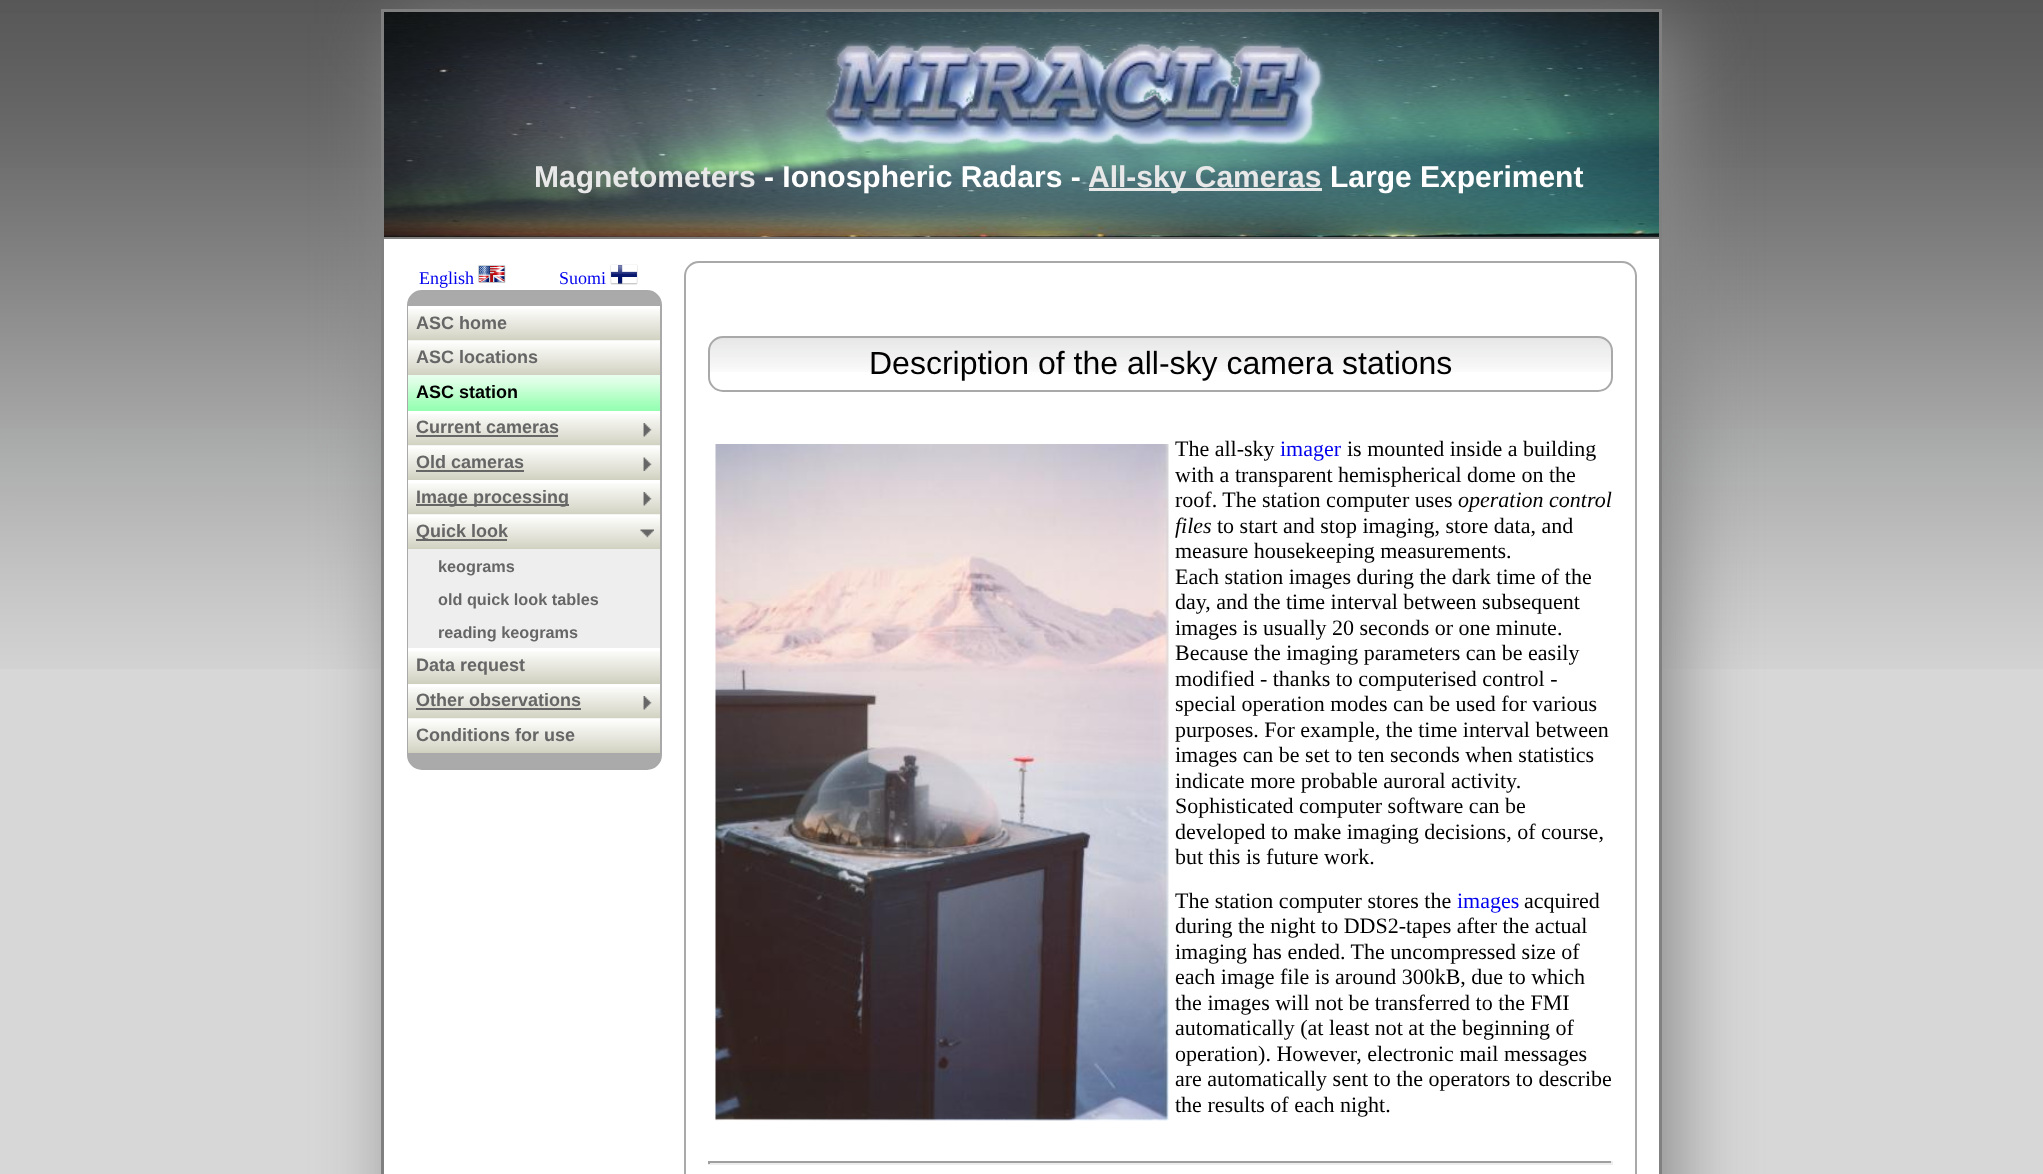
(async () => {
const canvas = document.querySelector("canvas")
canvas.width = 2043
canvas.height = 1174
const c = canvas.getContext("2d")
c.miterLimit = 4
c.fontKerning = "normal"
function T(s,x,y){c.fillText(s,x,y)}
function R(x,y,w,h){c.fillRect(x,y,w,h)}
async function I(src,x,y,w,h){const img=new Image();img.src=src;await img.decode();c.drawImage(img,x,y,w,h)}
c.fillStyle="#d7d7d7"
R(0,0,2043,1174)
await I("1.png",0,0,2043,669)
c.fillStyle="#888"
c.filter="blur(37.5px)"
c.beginPath()
c.rect(396,24,1281,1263)
c.fill()
c.filter="none"
c.fillStyle="#fff"
R(384,239,1275,935)
c.strokeStyle="#808080"
c.lineWidth=3
c.strokeRect(382.5,10.5,1278,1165)
c.fillStyle="#808080"
R(384,237,1275,2)
await I("2.png",384,12,1275,225)
await I("3.png",824,40,501,109)
c.font="bold 30px Liberation Sans"
c.fillStyle="#e8e8e8"
T("Magnetometers",534,187)
c.fillStyle="#fff"
T("- Ionospheric Radars -",764,187)
c.fillStyle="#e8e8e8"
R(1089,188,233,3)
T("All-sky Cameras",1088,187)
c.fillStyle="#fff"
T("Large Experiment",1330,187)
c.font="18px Liberation Serif"
c.fillStyle="#00e"
T("English",419,284)
await I("4.png",478,265,28,18)
T("Suomi",559,284)
await I("5.png",610,264,28,21)
c.fillStyle="#aaa"
c.beginPath()
c.roundRect(408,291,253,478,14)
c.fill()
c.strokeStyle="#a9a9a9"
c.lineWidth=2
c.stroke()
c.fillStyle="#fff"
R(408,306,252,35)
await I("6.png",408,309,252,32)
c.font="bold 18px Liberation Sans"
c.fillStyle="#666"
T("ASC home",416,329)
await I("7.png",408,340,252,35)
T("ASC locations",416,363)
await I("8.png",408,375,252,36)
c.fillStyle="#000"
T("ASC station",416,398)
c.fillStyle="#fff"
R(408,411,252,35)
await I("6.png",408,414,252,32)
c.fillStyle="#666"
T("Current cameras",416,433)
R(416,435,142,2)
await I("9.png",643,423,9,14)
await I("7.png",408,445,252,35)
T("Old cameras",416,468)
R(416,470,108,2)
await I("10.png",643,457,9,14)
c.fillStyle="#fff"
R(408,480,252,35)
await I("6.png",408,483,252,32)
c.fillStyle="#666"
R(416,504,153,2)
T("Image processing",416,503)
await I("9.png",643,492,9,14)
await I("7.png",408,514,252,35)
R(416,539,91,2)
T("Quick look",416,537)
await I("11.png",640,529,14,9)
c.fillStyle="#eee"
R(408,549,252,99)
c.font="bold 16.25px Liberation Sans"
c.fillStyle="#666"
T("keograms",438,572)
T("old quick look tables",438,605)
T("reading keograms",438,638)
c.fillStyle="#fff"
R(408,648,252,3)
await I("12.png",408,651,252,33)
c.font="bold 18px Liberation Sans"
c.fillStyle="#666"
T("Data request",416,671)
c.fillStyle="#fff"
R(408,684,252,35)
await I("6.png",408,687,252,32)
c.fillStyle="#666"
T("Other observations",416,706)
R(416,708,165,2)
await I("9.png",643,696,9,14)
await I("7.png",408,718,252,35)
T("Conditions for use",416,741)
c.beginPath()
c.roundRect(685,262,951,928,14)
c.stroke()
await I("13.png",708,337,905,35)
c.beginPath()
c.roundRect(709,337,903,54,14)
c.stroke()
c.font="32px Liberation Sans"
c.fillStyle="#000"
T("Description of the all-sky camera stations",869,374)
await I("14.png",715,444,454,677)
c.font="22px Liberation Serif"
T("The all-sky",1175,456)
c.fillStyle="#00e"
T("imager",1280,456)
c.fillStyle="#000"
T("is mounted inside a building",1347,456)
T("with a transparent hemispherical dome on the",1175,482)
T("roof. The station computer uses",1175,507)
c.font="italic 22px Liberation Serif"
T("operation control",1458,507)
T("files",1175,533)
c.font="22px Liberation Serif"
T("to start and stop imaging, store data, and",1217,533)
T("measure housekeeping measurements.",1175,558)
T("Each station images during the dark time of the",1175,584)
T("day, and the time interval between subsequent",1175,609)
T("images is usually 20 seconds or one minute.",1175,635)
T("Because the imaging parameters can be easily",1175,660)
T("modified - thanks to computerised control -",1175,686)
T("special operation modes can be used for various",1175,711)
T("purposes. For example, the time interval between",1175,737)
T("images can be set to ten seconds when statistics",1175,762)
T("indicate more probable auroral activity.",1175,788)
T("Sophisticated computer software can be",1175,813)
T("developed to make imaging decisions, of course,",1175,839)
T("but this is future work.",1175,864)
T("The station computer stores the",1175,908)
c.fillStyle="#00e"
T("images",1457,908)
c.fillStyle="#000"
T("acquired",1524,908)
T("during the night to DDS2-tapes after the actual",1175,933)
T("imaging has ended. The uncompressed size of",1175,959)
T("each image file is around 300kB, due to which",1175,984)
T("the images will not be transferred to the FMI",1175,1010)
T("automatically (at least not at the beginning of",1175,1035)
T("operation). However, electronic mail messages",1175,1061)
T("are automatically sent to the operators to describe",1175,1086)
T("the results of each night.",1175,1112)
c.fillStyle="#9f9f9f"
R(708,1161,905,2)
c.fillStyle="#eee"
R(1611,1161,2,3)
R(708,1163,905,2)
c.fillStyle="#9f9f9f"
R(708,1161,2,3)
})()
